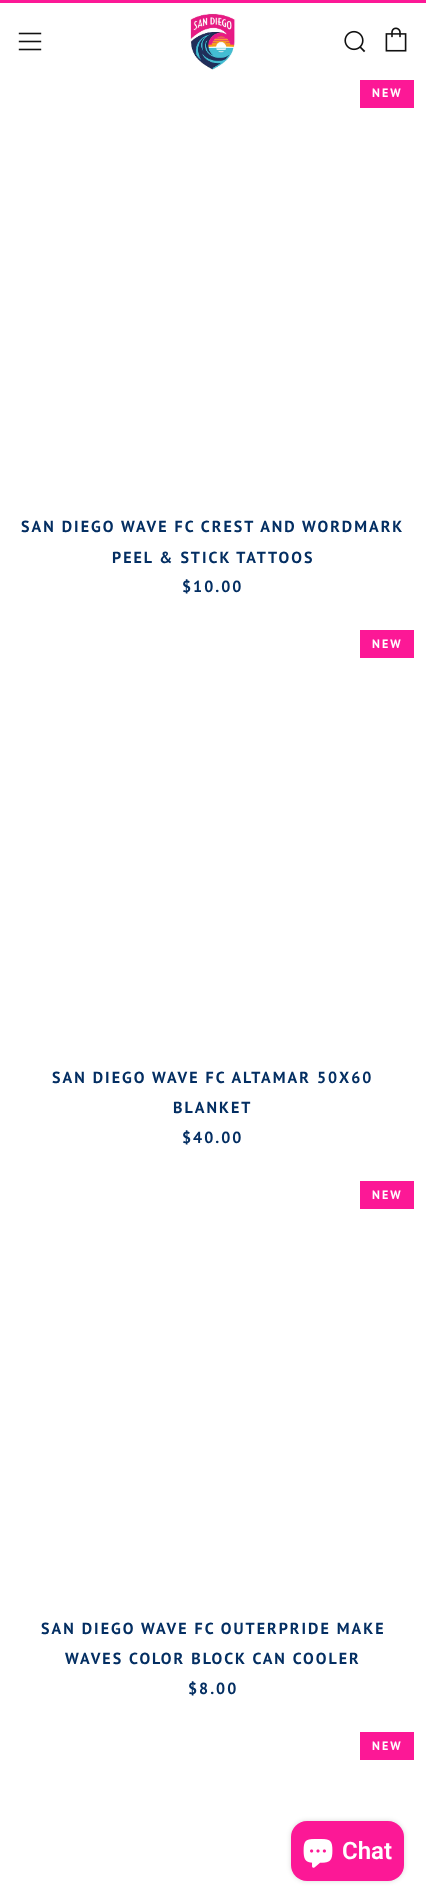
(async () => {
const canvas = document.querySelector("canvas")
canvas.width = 426
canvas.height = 1902
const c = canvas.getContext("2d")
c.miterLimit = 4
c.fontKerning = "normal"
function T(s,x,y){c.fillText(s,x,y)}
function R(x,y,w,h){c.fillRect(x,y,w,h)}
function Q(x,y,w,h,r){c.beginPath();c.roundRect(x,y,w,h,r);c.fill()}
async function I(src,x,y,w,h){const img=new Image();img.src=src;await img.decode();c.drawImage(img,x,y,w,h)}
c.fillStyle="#fff"
R(0,0,426,1902)
c.fillStyle="#fc1896"
R(0,0,426,3)
await I("1.png",18,32,24,19)
await I("2.png",190,13,46,57)
await I("3.png",344,30,22,23)
await I("4.png",385,27,22,25)
R(360,80,54,28)
c.letterSpacing="2px"
c.font="bold 12px PT Sans"
c.fillStyle="#fff"
T("NEW",372,97)
c.font="bold 16px PT Sans"
c.fillStyle="#032e62"
T("SAN DIEGO WAVE FC CREST AND WORDMARK",21,532)
T("PEEL & STICK TATTOOS",112,563)
T("$10.00",182,592)
c.fillStyle="#fc1896"
R(360,630,54,28)
c.font="bold 12px PT Sans"
c.fillStyle="#fff"
T("NEW",372,648)
c.font="bold 16px PT Sans"
c.fillStyle="#032e62"
T("SAN DIEGO WAVE FC ALTAMAR 50X60",52,1083)
T("BLANKET",173,1113)
T("$40.00",182,1143)
c.fillStyle="#fc1896"
R(360,1181,54,28)
c.font="bold 12px PT Sans"
c.fillStyle="#fff"
T("NEW",372,1199)
c.font="bold 16px PT Sans"
c.fillStyle="#032e62"
T("SAN DIEGO WAVE FC OUTERPRIDE MAKE",41,1634)
T("WAVES COLOR BLOCK CAN COOLER",65,1664)
T("$8.00",188,1694)
c.fillStyle="#fc1896"
R(360,1732,54,28)
c.font="bold 12px PT Sans"
c.fillStyle="#fff"
T("NEW",372,1750)
c.fillStyle="#00000026"
c.filter="blur(2.5px)"
c.beginPath()
c.roundRect(291,1821,113,60,16)
c.fill()
c.filter="none"
c.fillStyle="#fc1896"
Q(291,1821,113,60,16)
await I("5.png",303,1839,30,29)
c.letterSpacing="0px"
c.font="600 24px Roboto"
c.fillStyle="#fff"
T("Chat",342,1859)
})()
